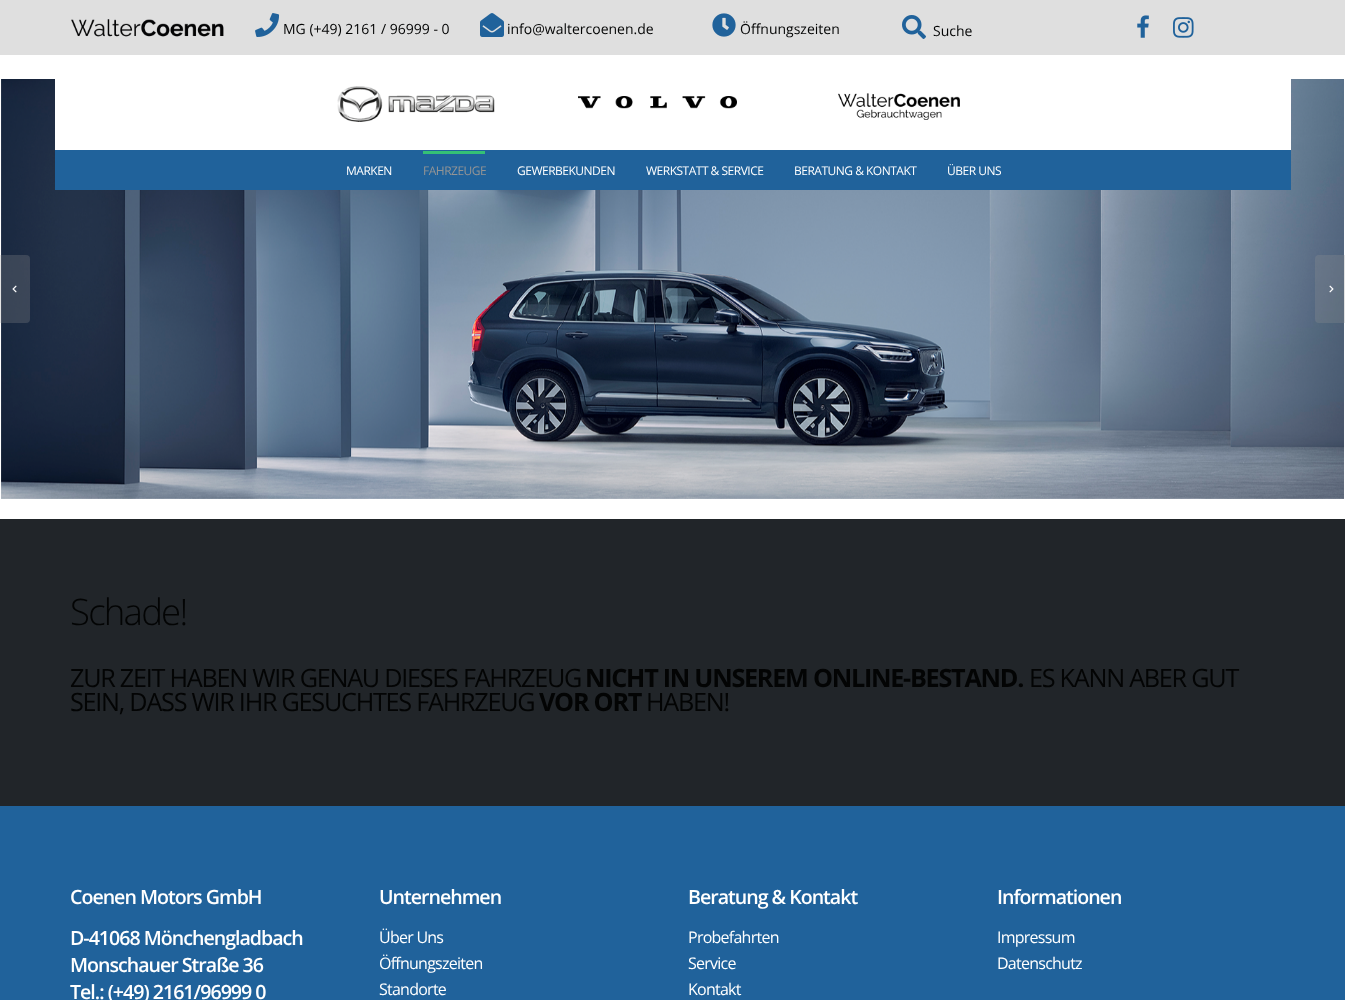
(async () => {
const canvas = document.querySelector("canvas")
canvas.width = 1345
canvas.height = 1000
const c = canvas.getContext("2d")
c.miterLimit = 4
c.fontKerning = "normal"
function T(s,x,y){c.fillText(s,x,y)}
function R(x,y,w,h){c.fillRect(x,y,w,h)}
async function I(src,x,y,w,h){const img=new Image();img.src=src;await img.decode();c.drawImage(img,x,y,w,h)}
c.fillStyle="#fff"
R(0,0,1345,1000)
c.fillStyle="#dfdfdf"
R(0,0,1345,55)
await I("1.png",71,19,153,18)
await I("2.png",255,13,25,24)
c.font="14px Open Sans"
c.fillStyle="#030404"
T("MG (+49) 2161 / 96999 - 0",283,34)
await I("3.png",480,13,24,24)
T("info@waltercoenen.de",507,34)
await I("4.png",712,13,24,24)
T("Öffnungszeiten",740,34)
await I("5.png",902,15,24,24)
T("Suche",933,36)
await I("6.png",1137,15,12,23)
await I("7.png",1173,17,21,21)
await I("11.png",1,79,1343,420)
c.fillStyle="#fff"
R(55,79,1236,71)
await I("8.png",337,86,158,36)
await I("9.png",578,96,159,13)
await I("10.png",838,93,122,27)
c.fillStyle="#20629b"
R(55,150,1236,40)
c.letterSpacing="-0.5px"
c.font="12px Open Sans"
c.fillStyle="#fff"
T("MARKEN",346,175)
c.fillStyle="#35c175"
R(423,151,62,3)
c.fillStyle="#959595"
T("FAHRZEUGE",423,175)
c.fillStyle="#fff"
T("GEWERBEKUNDEN",517,175)
T("WERKSTATT & SERVICE",646,175)
T("BERATUNG & KONTAKT",794,175)
T("ÜBER UNS",947,175)
c.fillStyle="#95959542"
c.beginPath()
c.roundRect(0,255,30,68,[0,4,4,0])
c.fill()
await I("12.png",12,285,5,8)
c.beginPath()
c.roundRect(1315,255,30,68,[4,0,0,4])
c.fill()
await I("13.png",1329,285,5,8)
c.fillStyle="#212529"
R(0,519,1345,287)
c.letterSpacing="-1.75px"
c.font="300 36.5px Open Sans"
c.fillStyle="#030404"
T("Schade!",70,625)
c.letterSpacing="-1.25px"
c.font="25.2px Open Sans"
T("ZUR ZEIT HABEN WIR GENAU DIESES FAHRZEUG",70,687)
c.font="bold 25.2px Open Sans"
T("NICHT IN UNSEREM ONLINE-BESTAND.",585,687)
c.font="25.2px Open Sans"
T("ES KANN ABER GUT",1029,687)
T("SEIN, DASS WIR IHR GESUCHTES FAHRZEUG",70,711)
c.font="bold 25.2px Open Sans"
T("VOR ORT",539,711)
c.font="25.2px Open Sans"
T("HABEN!",646,711)
c.fillStyle="#20629b"
R(0,806,1345,194)
c.letterSpacing="-1px"
c.font="600 19.6px Open Sans"
c.fillStyle="#fff"
T("Coenen Motors GmbH",70,904)
T("D-41068 Mönchengladbach",70,945)
T("Monschauer Straße 36",70,972)
T("Tel.: (+49) 2161/96999 0",70,999)
T("Unternehmen",379,904)
c.letterSpacing="-0.75px"
c.font="16px Open Sans"
T("Über Uns",379,943)
T("Öffnungszeiten",379,969)
T("Standorte",379,995)
c.letterSpacing="-1px"
c.font="600 19.6px Open Sans"
T("Beratung & Kontakt",688,904)
c.letterSpacing="-0.75px"
c.font="16px Open Sans"
T("Probefahrten",688,943)
T("Service",688,969)
T("Kontakt",688,995)
c.letterSpacing="-1px"
c.font="600 19.6px Open Sans"
T("Informationen",997,904)
c.letterSpacing="-0.75px"
c.font="16px Open Sans"
T("Impressum",997,943)
T("Datenschutz",997,969)
})()
